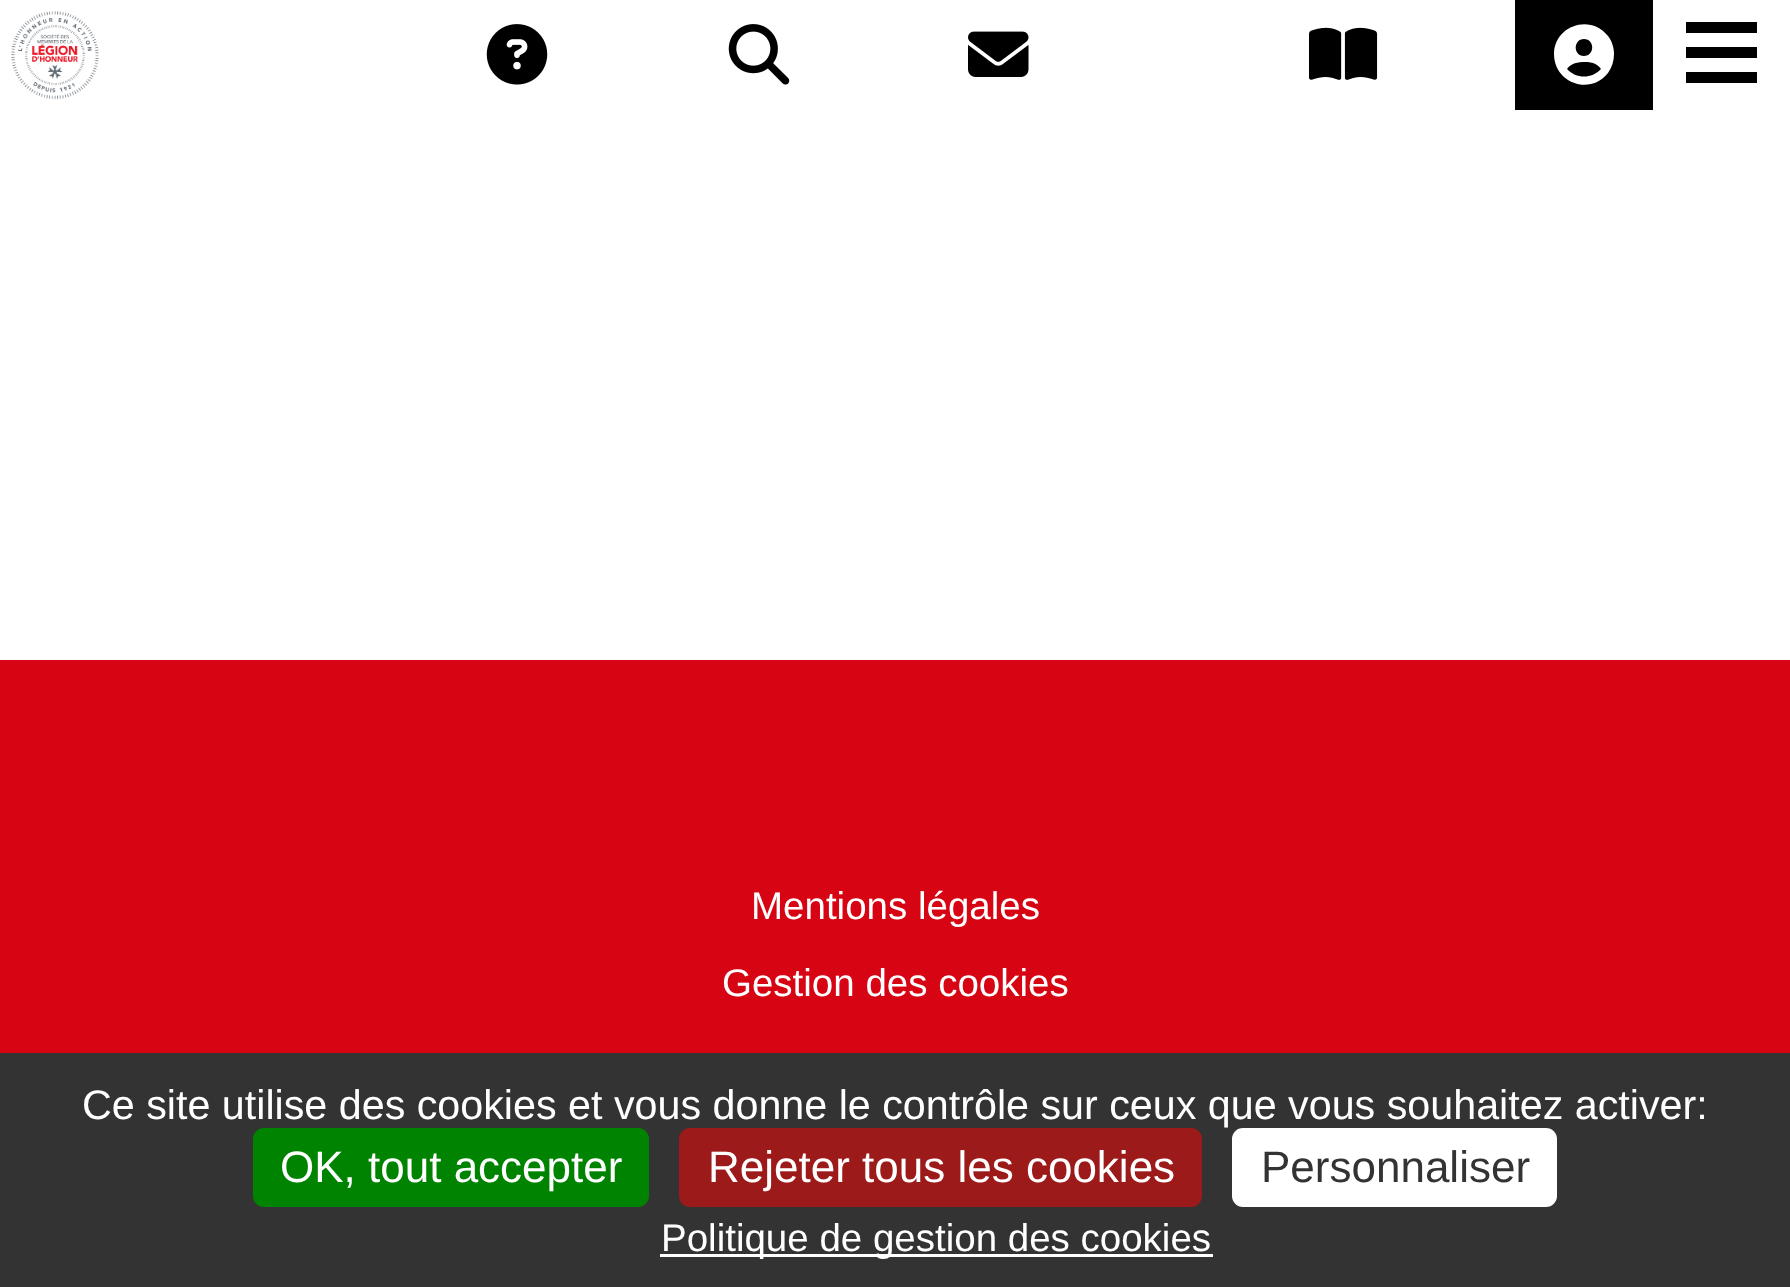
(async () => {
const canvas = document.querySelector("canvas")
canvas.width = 1790
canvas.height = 1287
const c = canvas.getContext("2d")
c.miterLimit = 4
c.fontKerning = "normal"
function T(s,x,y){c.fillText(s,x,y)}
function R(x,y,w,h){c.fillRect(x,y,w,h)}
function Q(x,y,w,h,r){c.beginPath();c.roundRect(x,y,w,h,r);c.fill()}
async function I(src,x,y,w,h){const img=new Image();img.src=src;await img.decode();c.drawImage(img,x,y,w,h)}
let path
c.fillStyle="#fff"
R(0,0,1790,1287)
await I("1.png",11,11,88,89)
await I("2.png",486,24,62,61)
await I("3.png",728,24,62,61)
await I("4.png",968,31,61,46)
await I("5.png",1309,27,69,53)
c.fillStyle="#000"
R(1515,0,138,110)
c.fillStyle="#fff"
path = new Path2D("M1601 69c-4-6-10-7-16-7c-7 0-14 1-18 7c9 10 25 10 34 0zm-47-15c0-28 36-41 54-18c4 5 6 12 6 18c0 7-2 13-6 19c-18 23-54 10-54-19zm30 2c11 0 11-17 0-17c-11 0-11 17 0 17z")
c.fill(path)
c.fillStyle="#000"
R(1686,22,71,11)
R(1686,47,71,11)
R(1686,72,71,11)
c.fillStyle="#d70513"
R(0,660,1790,393)
c.font="38.5px Liberation Sans"
c.fillStyle="#fff"
T("Mentions légales",751,919)
T("Gestion des cookies",722,996)
c.fillStyle="#333"
R(0,1053,1790,234)
c.font="41.25px Liberation Sans"
c.fillStyle="#fff"
T("Ce site utilise des cookies et vous donne le contrôle sur ceux que vous souhaitez activer:",82,1119)
c.fillStyle="#008300"
Q(253,1128,396,79,11)
c.font="44px Liberation Sans"
c.fillStyle="#fff"
T("OK, tout accepter",280,1182)
c.fillStyle="#9c1a1a"
Q(679,1128,523,79,11)
c.fillStyle="#fff"
T("Rejeter tous les cookies",708,1182)
Q(1232,1128,325,79,11)
c.fillStyle="#333"
T("Personnaliser",1261,1182)
c.fillStyle="#fff"
R(660,1254,553,3)
c.font="38.5px Liberation Sans"
T("Politique de gestion des cookies",661,1251)
})()
